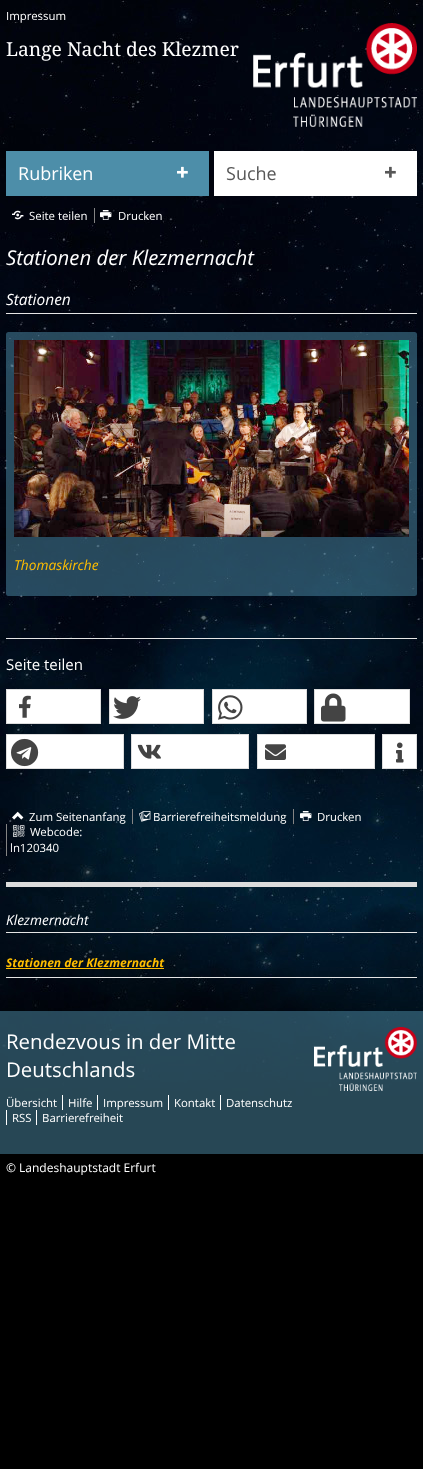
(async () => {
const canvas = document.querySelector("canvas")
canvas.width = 423
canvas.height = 1469
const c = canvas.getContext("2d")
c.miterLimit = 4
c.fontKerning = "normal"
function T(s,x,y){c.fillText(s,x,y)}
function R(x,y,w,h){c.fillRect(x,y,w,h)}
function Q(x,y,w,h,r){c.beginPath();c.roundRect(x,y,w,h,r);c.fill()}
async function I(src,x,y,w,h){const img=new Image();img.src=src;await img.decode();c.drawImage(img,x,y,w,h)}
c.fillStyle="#000"
R(0,0,423,1469)
await I("1.png",0,0,423,1096)
c.font="11.4px Open Sans"
c.fillStyle="#fff"
T("Impressum",6,20)
c.font="19.25px Noto Serif"
T("Lange Nacht des Klezmer",6,56)
await I("2.png",253,23,164,104)
c.fillStyle="#4d8ea9"
R(6,151,203,45)
c.font="18px Open Sans"
c.fillStyle="#fff"
T("Rubriken",18,180)
await I("3.png",177,166,11,12)
R(214,151,203,45)
c.fillStyle="#575757"
T("Suche",226,180)
await I("4.png",385,166,11,12)
await I("5.png",12,210,12,10)
c.font="11.4px Open Sans"
c.fillStyle="#fff"
T("Seite teilen",29,220)
c.fillStyle="#848484"
R(94,208,1,15)
await I("6.png",100,210,12,10)
c.fillStyle="#fff"
T("Drucken",118,220)
c.font="italic 20.4px Open Sans"
T("Stationen der Klezmernacht",6,265)
c.fillStyle="#e5e5e5"
R(6,313,411,1)
c.font="italic 15.5px Open Sans"
c.fillStyle="#fff"
T("Stationen",6,305)
c.fillStyle="#4d8ea980"
Q(6,332,411,264,2.5)
await I("7.png",14,340,395,197)
c.font="italic 13.75px Open Sans"
c.fillStyle="#ffbe00"
T("Thomaskirche",14,570)
c.fillStyle="#e5e5e5"
R(6,638,411,1)
c.font="15px Open Sans"
c.fillStyle="#fff"
T("Seite teilen",6,670)
c.strokeStyle="#ddd"
c.strokeRect(6.5,689.5,94,34)
R(7,690,93,33)
await I("8.png",19,695,12,23)
c.strokeRect(109.5,689.5,94,34)
R(110,690,93,33)
await I("9.png",113,696,28,23)
c.strokeRect(212.5,689.5,94,34)
R(213,690,93,33)
await I("10.png",218,695,25,25)
c.strokeRect(314.5,689.5,95,34)
R(315,690,94,33)
await I("11.png",321,693,25,29)
c.strokeRect(6.5,734.5,117,34)
R(7,735,116,33)
await I("12.png",11,738,28,29)
c.strokeRect(131.5,734.5,117,34)
R(132,735,116,33)
await I("13.png",137,744,24,15)
c.strokeRect(257.5,734.5,117,34)
R(258,735,116,33)
await I("14.png",265,744,21,16)
c.strokeRect(382.5,734.5,34,34)
R(383,735,33,33)
await I("15.png",396,742,8,21)
await I("16.png",12,811,12,9)
c.font="11.4px Open Sans"
T("Zum Seitenanfang",29,821)
c.fillStyle="#848484"
R(132,809,1,15)
await I("17.png",139,811,12,11)
c.fillStyle="#fff"
T("Barrierefreiheitsmeldung",153,821)
c.fillStyle="#848484"
R(293,809,1,15)
await I("18.png",300,811,12,10)
c.fillStyle="#fff"
T("Drucken",317,821)
c.fillStyle="#848484"
R(6,824,1,32)
await I("19.png",13,825,12,12)
c.fillStyle="#fff"
T("Webcode:",30,836)
T("ln120340",10,852)
c.fillStyle="#dcdcdc"
R(6,882,411,5)
c.fillStyle="#e5e5e5"
R(6,932,411,1)
c.font="italic 13.75px Open Sans"
c.fillStyle="#fff"
T("Klezmernacht",6,925)
c.fillStyle="#e5e5e5"
R(6,977,411,1)
c.font="italic bold 12px Open Sans"
c.fillStyle="#ffbe00"
T("Stationen der Klezmernacht",6,967)
R(6,968,158,1)
c.fillStyle="#4d8ea980"
R(0,1011,423,143)
c.font="20.4px Open Sans"
c.fillStyle="#fff"
T("Rendezvous in der Mitte",6,1049)
T("Deutschlands",6,1077)
c.font="11.4px Open Sans"
T("Übersicht",6,1107)
R(62,1095,1,15)
T("Hilfe",68,1107)
R(97,1095,1,15)
T("Impressum",103,1107)
R(168,1095,1,15)
T("Kontakt",174,1107)
R(220,1095,1,15)
T("Datenschutz",226,1107)
R(6,1110,1,15)
T("RSS",12,1122)
R(36,1110,1,15)
T("Barrierefreiheit",42,1122)
await I("20.png",314,1027,103,64)
c.font="12px Open Sans"
T("© Landeshauptstadt Erfurt",6,1172)
})()
